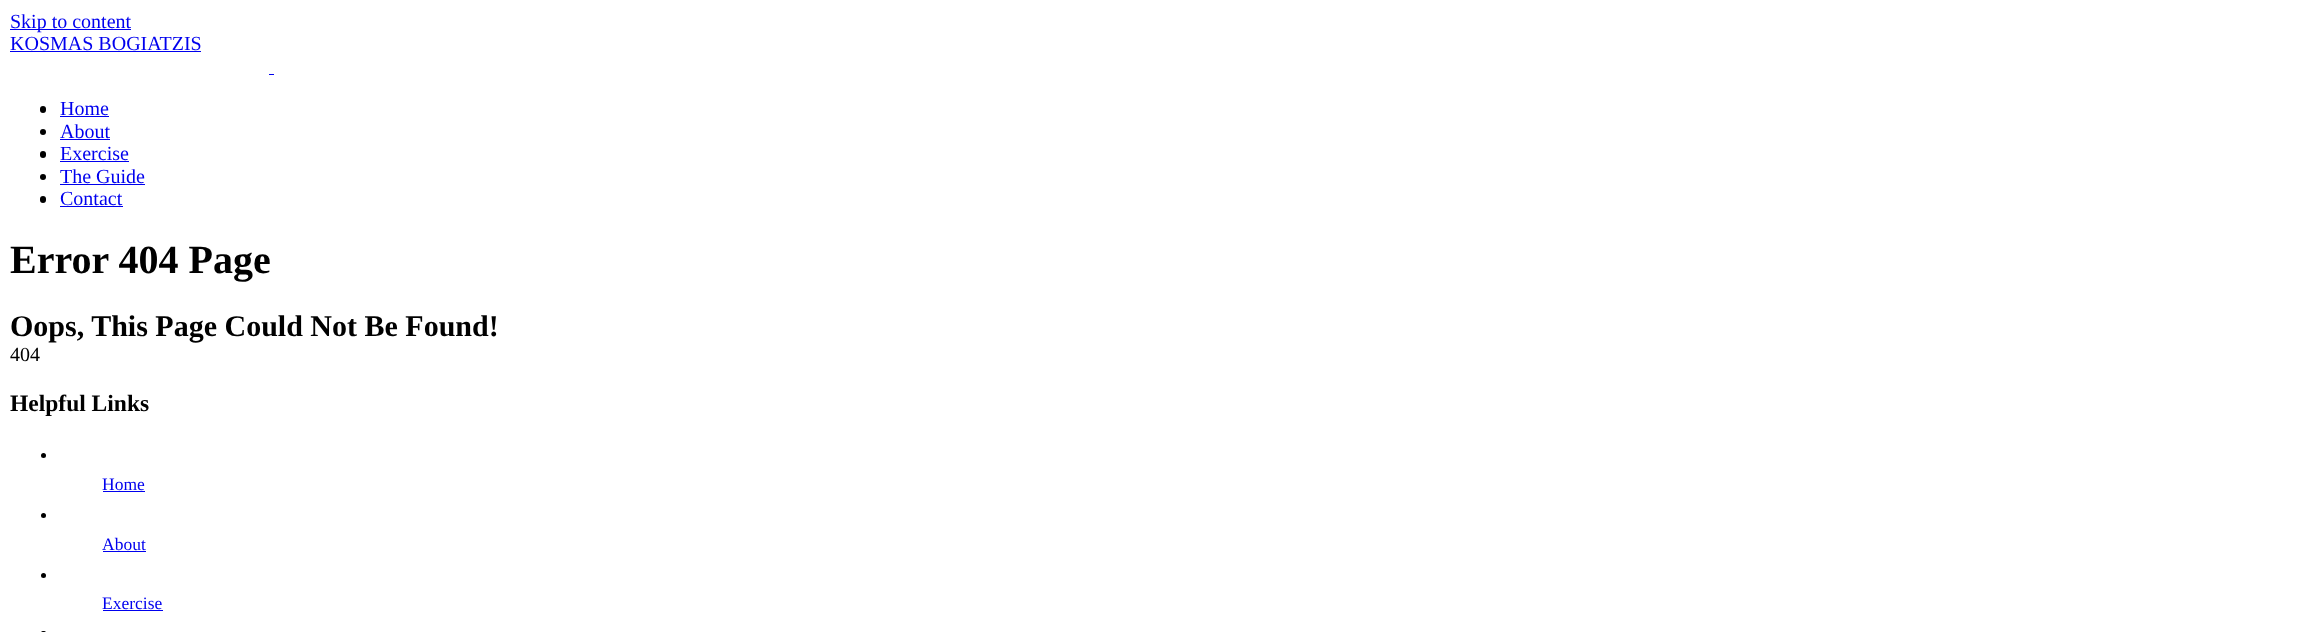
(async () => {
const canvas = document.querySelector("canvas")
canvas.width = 2307
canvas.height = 632
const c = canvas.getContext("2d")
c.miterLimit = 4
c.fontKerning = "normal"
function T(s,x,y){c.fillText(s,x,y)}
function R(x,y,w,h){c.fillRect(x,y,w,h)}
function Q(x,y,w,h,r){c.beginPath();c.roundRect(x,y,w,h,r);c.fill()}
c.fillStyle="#fff"
R(0,0,2307,632)
c.fillStyle="#00e"
R(10,29,121,1)
c.font="20px Liberation Serif"
T("Skip to content",10,28)
T("KOSMAS BOGIATZIS",10,50)
R(10,51,191,1)
R(269,74,5,1)
c.fillStyle="#000"
Q(40,106,6,7,3)
c.fillStyle="#00e"
T("Home",60,115)
R(60,116,49,1)
c.fillStyle="#000"
c.beginPath()
c.arc(43,132,3,0,7)
c.fill()
c.fillStyle="#00e"
T("About",60,138)
R(60,139,50,1)
c.fillStyle="#000"
Q(40,151,6,7,3)
c.fillStyle="#00e"
T("Exercise",60,160)
R(60,161,69,1)
c.fillStyle="#000"
c.beginPath()
c.arc(43,177,3,0,7)
c.fill()
c.fillStyle="#00e"
T("The Guide",60,183)
R(60,184,85,1)
c.fillStyle="#000"
Q(40,196,6,7,3)
c.fillStyle="#00e"
T("Contact",60,205)
R(60,206,63,1)
c.font="bold 40px Liberation Serif"
c.fillStyle="#000"
T("Error 404 Page",10,273)
c.font="bold 30px Liberation Serif"
T("Oops, This Page Could Not Be Found!",10,336)
c.font="20px Liberation Serif"
T("404",10,361)
c.font="bold 23.5px Liberation Serif"
T("Helpful Links",10,411)
c.beginPath()
c.arc(43.5,455.5,2.5,0,7)
c.fill()
c.font="17.5px Liberation Serif"
c.fillStyle="#00e"
T("Home",102,490)
R(103,491,42,1)
c.fillStyle="#000"
c.beginPath()
c.arc(43.5,515.5,2.5,0,7)
c.fill()
c.fillStyle="#00e"
T("About",102,550)
R(103,551,43,1)
c.fillStyle="#000"
c.beginPath()
c.arc(43.5,575.5,2.5,0,7)
c.fill()
c.fillStyle="#00e"
T("Exercise",102,609)
R(103,610,60,1)
c.fillStyle="#000"
Q(41,631,5,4,2.5)
})()
